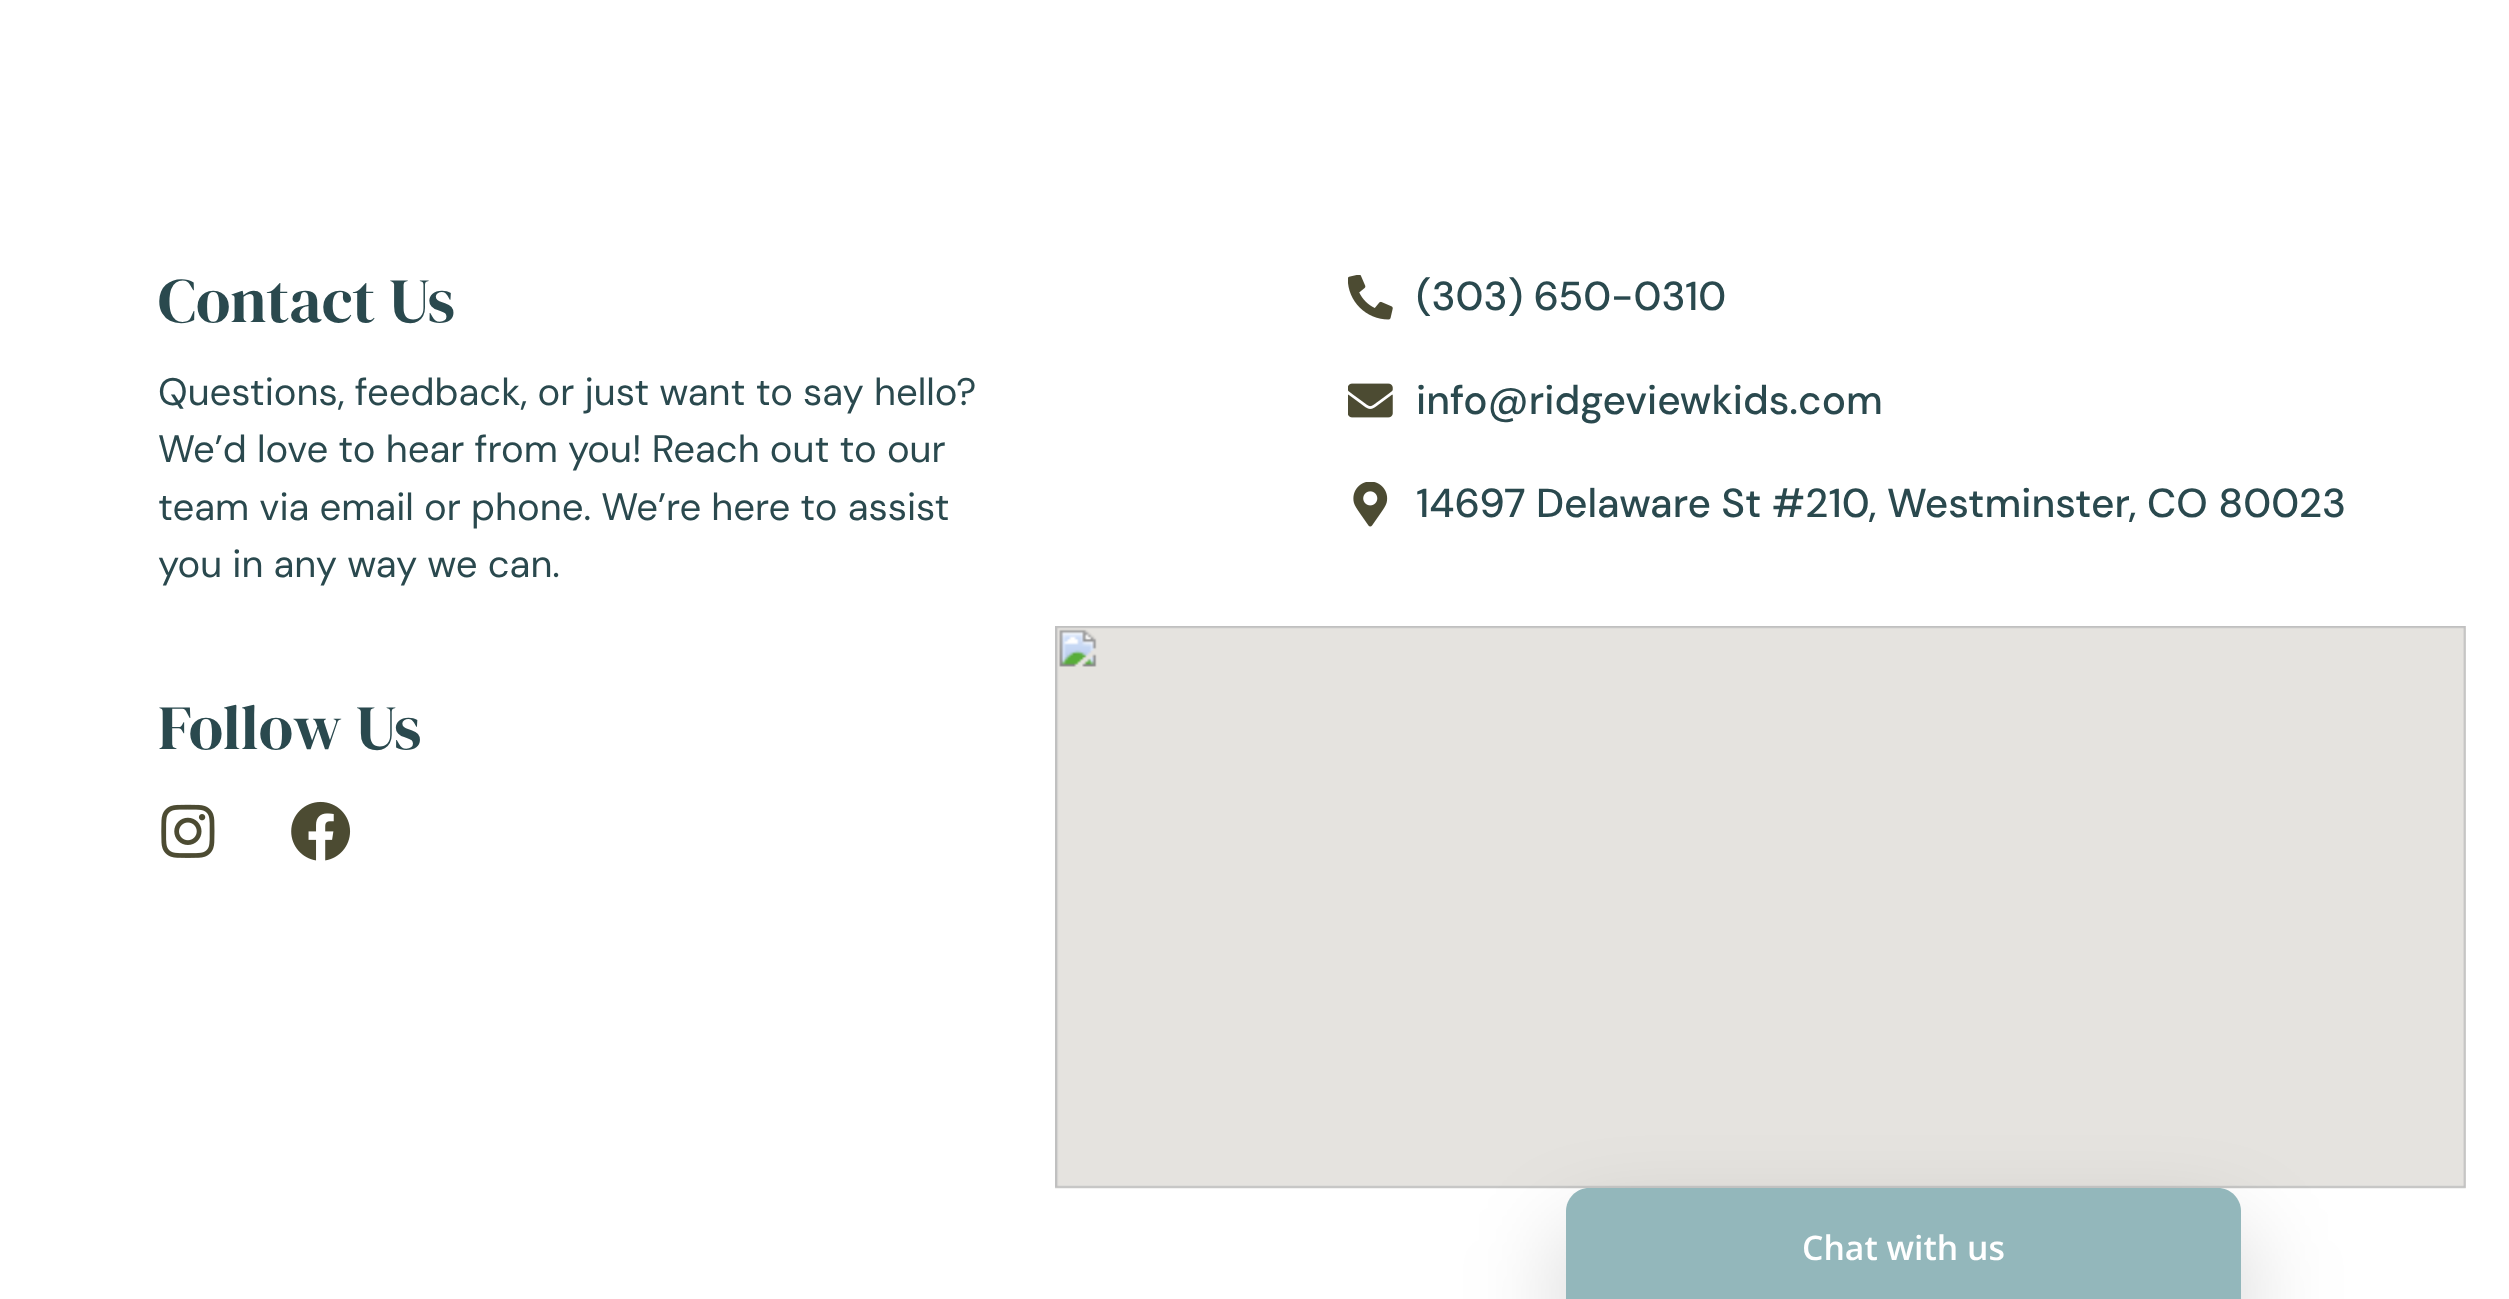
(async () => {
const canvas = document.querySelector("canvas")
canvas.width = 2509
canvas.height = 1299
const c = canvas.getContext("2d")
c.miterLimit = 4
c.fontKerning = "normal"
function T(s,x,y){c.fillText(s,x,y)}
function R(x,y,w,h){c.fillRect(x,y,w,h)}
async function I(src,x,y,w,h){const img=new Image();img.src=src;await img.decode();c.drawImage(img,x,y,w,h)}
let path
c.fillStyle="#fff"
R(0,0,2509,1299)
c.font="63px DM Serif Display"
c.fillStyle="#2a494e"
T("Contact Us",158,322)
c.font="38.25px DM Sans"
T("Questions, feedback, or just want to say hello?",158,405)
T("We’d love to hear from you! Reach out to our",158,462)
T("team via email or phone. We’re here to assist",158,520)
T("you in any way we can.",158,577)
c.font="63px DM Serif Display"
T("Follow Us",158,749)
await I("1.png",161,804,54,54)
await I("2.png",291,801,60,60)
await I("3.png",1348,275,45,45)
c.font="500 40.5px DM Sans"
T("(303) 650-0310",1416,310)
await I("4.png",1348,383,45,35)
T("info@ridgeviewkids.com",1416,414)
await I("5.png",1353,482,35,45)
T("14697 Delaware St #210, Westminster, CO 80023",1416,517)
await I("6.png",1055,626,1411,563)
c.fillStyle="#00000033"
c.filter="blur(49.5px)"
c.beginPath()
c.roundRect(1566,1238,675,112,23)
c.fill()
c.filter="none"
c.fillStyle="#93b7bb"
path = new Path2D("M1589 1188h629c12.5 0 23 10.5 23 23v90h-675v-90c0-12.5 10.5-23 23-23z")
c.fill(path)
c.font="600 33.75px Open Sans"
c.fillStyle="#fff"
T("Chat with us",1802,1260)
})()
